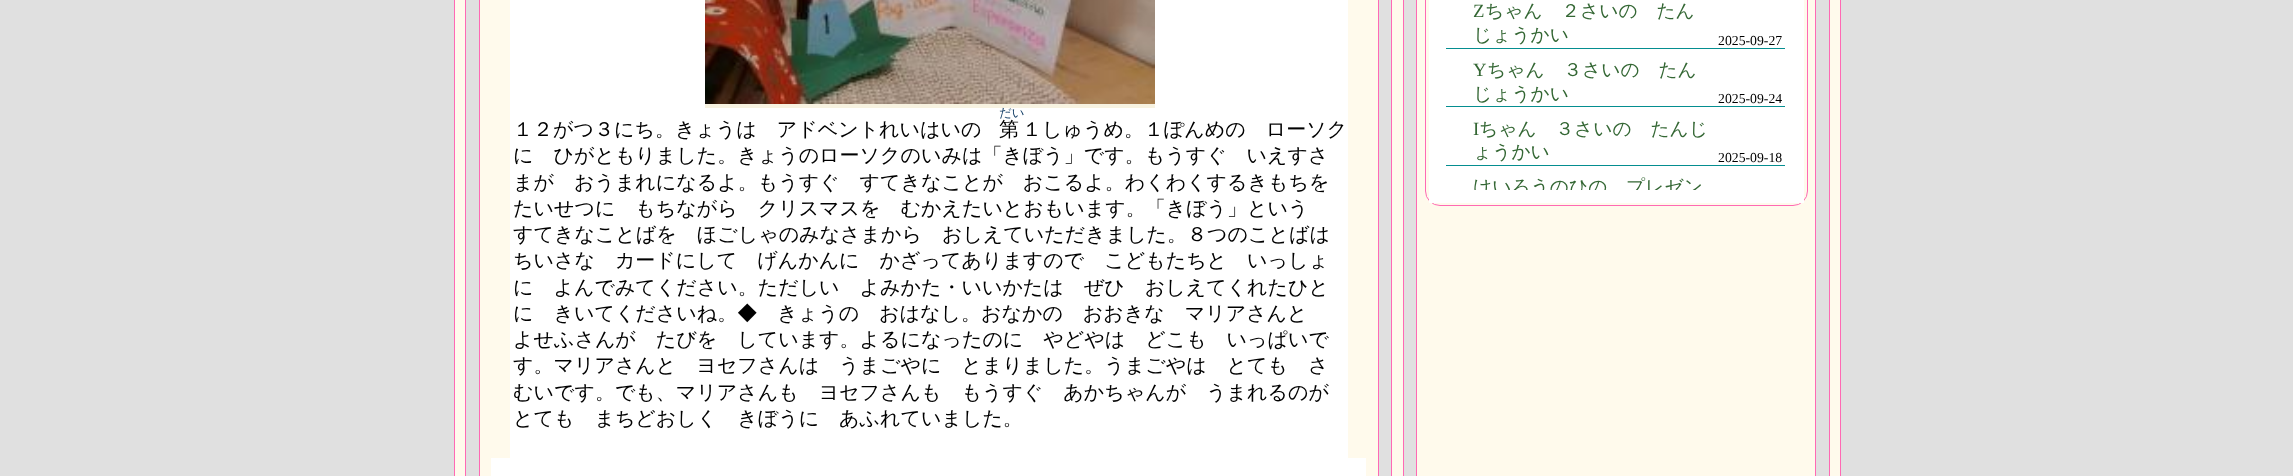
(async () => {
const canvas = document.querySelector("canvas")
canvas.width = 2293
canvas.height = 476
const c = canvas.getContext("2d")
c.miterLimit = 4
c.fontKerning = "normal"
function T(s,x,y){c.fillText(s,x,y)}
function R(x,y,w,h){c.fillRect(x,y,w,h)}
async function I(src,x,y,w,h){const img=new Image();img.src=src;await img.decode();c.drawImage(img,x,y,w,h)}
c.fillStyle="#e0e0e0"
R(0,0,2293,476)
c.fillStyle="#fffaec"
c.beginPath()
c.rect(454.5,-.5,11,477)
c.fill()
c.strokeStyle="#ff69b4"
c.stroke()
c.beginPath()
c.rect(479.5,-.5,899,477)
c.fill()
c.stroke()
c.fillStyle="#fff"
R(510,0,838,458)
await I("1.png",705,0,450,104)
c.fillStyle="#f7f2e0"
R(705,104,450,4)
c.font="500 20px WenQuanYi Zen Hei"
c.fillStyle="#000"
T("１２がつ３にち。きょうは　アドベントれいはいの",513,136)
c.font="500 12.5px WenQuanYi Zen Hei"
c.fillStyle="#0b3861"
T("だい",999,117)
c.font="500 20px WenQuanYi Zen Hei"
c.fillStyle="#000"
T("第",999,136)
T("１しゅうめ。１ぽんめの　ローソク",1022,136)
T("に　ひがともりました。きょうのローソクのいみは「きぼう」です。もうすぐ　いえすさ",513,162)
T("まが　おうまれになるよ。もうすぐ　すてきなことが　おこるよ。わくわくするきもちを",513,189)
T("たいせつに　もちながら　クリスマスを　むかえたいとおもいます。「きぼう」という",513,215)
T("すてきなことばを　ほごしゃのみなさまから　おしえていただきました。８つのことばは",513,241)
T("ちいさな　カードにして　げんかんに　かざってありますので　こどもたちと　いっしょ",513,267)
T("に　よんでみてください。ただしい　よみかた・いいかたは　ぜひ　おしえてくれたひと",513,294)
T("に　きいてくださいね。◆　きょうの　おはなし。おなかの　おおきな　マリアさんと",513,320)
T("よせふさんが　たびを　しています。よるになったのに　やどやは　どこも　いっぱいで",513,346)
T("す。マリアさんと　ヨセフさんは　うまごやに　とまりました。うまごやは　とても　さ",513,372)
T("むいです。でも、マリアさんも　ヨセフさんも　もうすぐ　あかちゃんが　うまれるのが",513,399)
T("とても　まちどおしく　きぼうに　あふれていました。",513,425)
c.fillStyle="#fff"
R(491,458,875,18)
c.fillStyle="#fffaec"
c.beginPath()
c.rect(1391.5,-.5,12,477)
c.fill()
c.stroke()
c.beginPath()
c.rect(1416.5,-.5,399,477)
c.fill()
c.stroke()
c.beginPath()
c.roundRect(1425.5,-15.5,382,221,14.5)
c.stroke()
c.fillStyle="#fff"
R(1429,0,375,203)
c.font="18.75px Liberation Serif"
c.fillStyle="#346734"
T("Z",1473,17)
c.font="500 18.75px WenQuanYi Zen Hei"
T("ちゃん　２さいの　たん",1485,17)
T("じょうかい",1473,41)
c.fillStyle="#058e90"
R(1446,48,339,1)
c.font="13.75px Liberation Serif"
c.fillStyle="#000"
T("2025-09-27",1718,45)
c.font="18.75px Liberation Serif"
c.fillStyle="#346734"
T("Y",1473,76)
c.font="500 18.75px WenQuanYi Zen Hei"
T("ちゃん　３さいの　たん",1487,76)
T("じょうかい",1473,100)
c.fillStyle="#058e90"
R(1446,106,339,1)
c.font="13.75px Liberation Serif"
c.fillStyle="#000"
T("2025-09-24",1718,103)
c.font="18.75px Liberation Serif"
c.fillStyle="#346734"
T("I",1473,135)
c.font="500 18.75px WenQuanYi Zen Hei"
T("ちゃん　３さいの　たんじ",1479,135)
T("ょうかい",1473,158)
c.fillStyle="#058e90"
R(1446,165,339,1)
c.font="13.75px Liberation Serif"
c.fillStyle="#000"
T("2025-09-18",1718,162)
c.save()
c.beginPath()
c.rect(1429,0,375,190)
c.clip()
c.font="500 18.75px WenQuanYi Zen Hei"
c.fillStyle="#346734"
T("けいろうのひの　プレゼン",1473,193)
c.restore()
c.fillStyle="#fffaec"
c.beginPath()
c.rect(1829.5,-.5,11,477)
c.fill()
c.stroke()
})()
